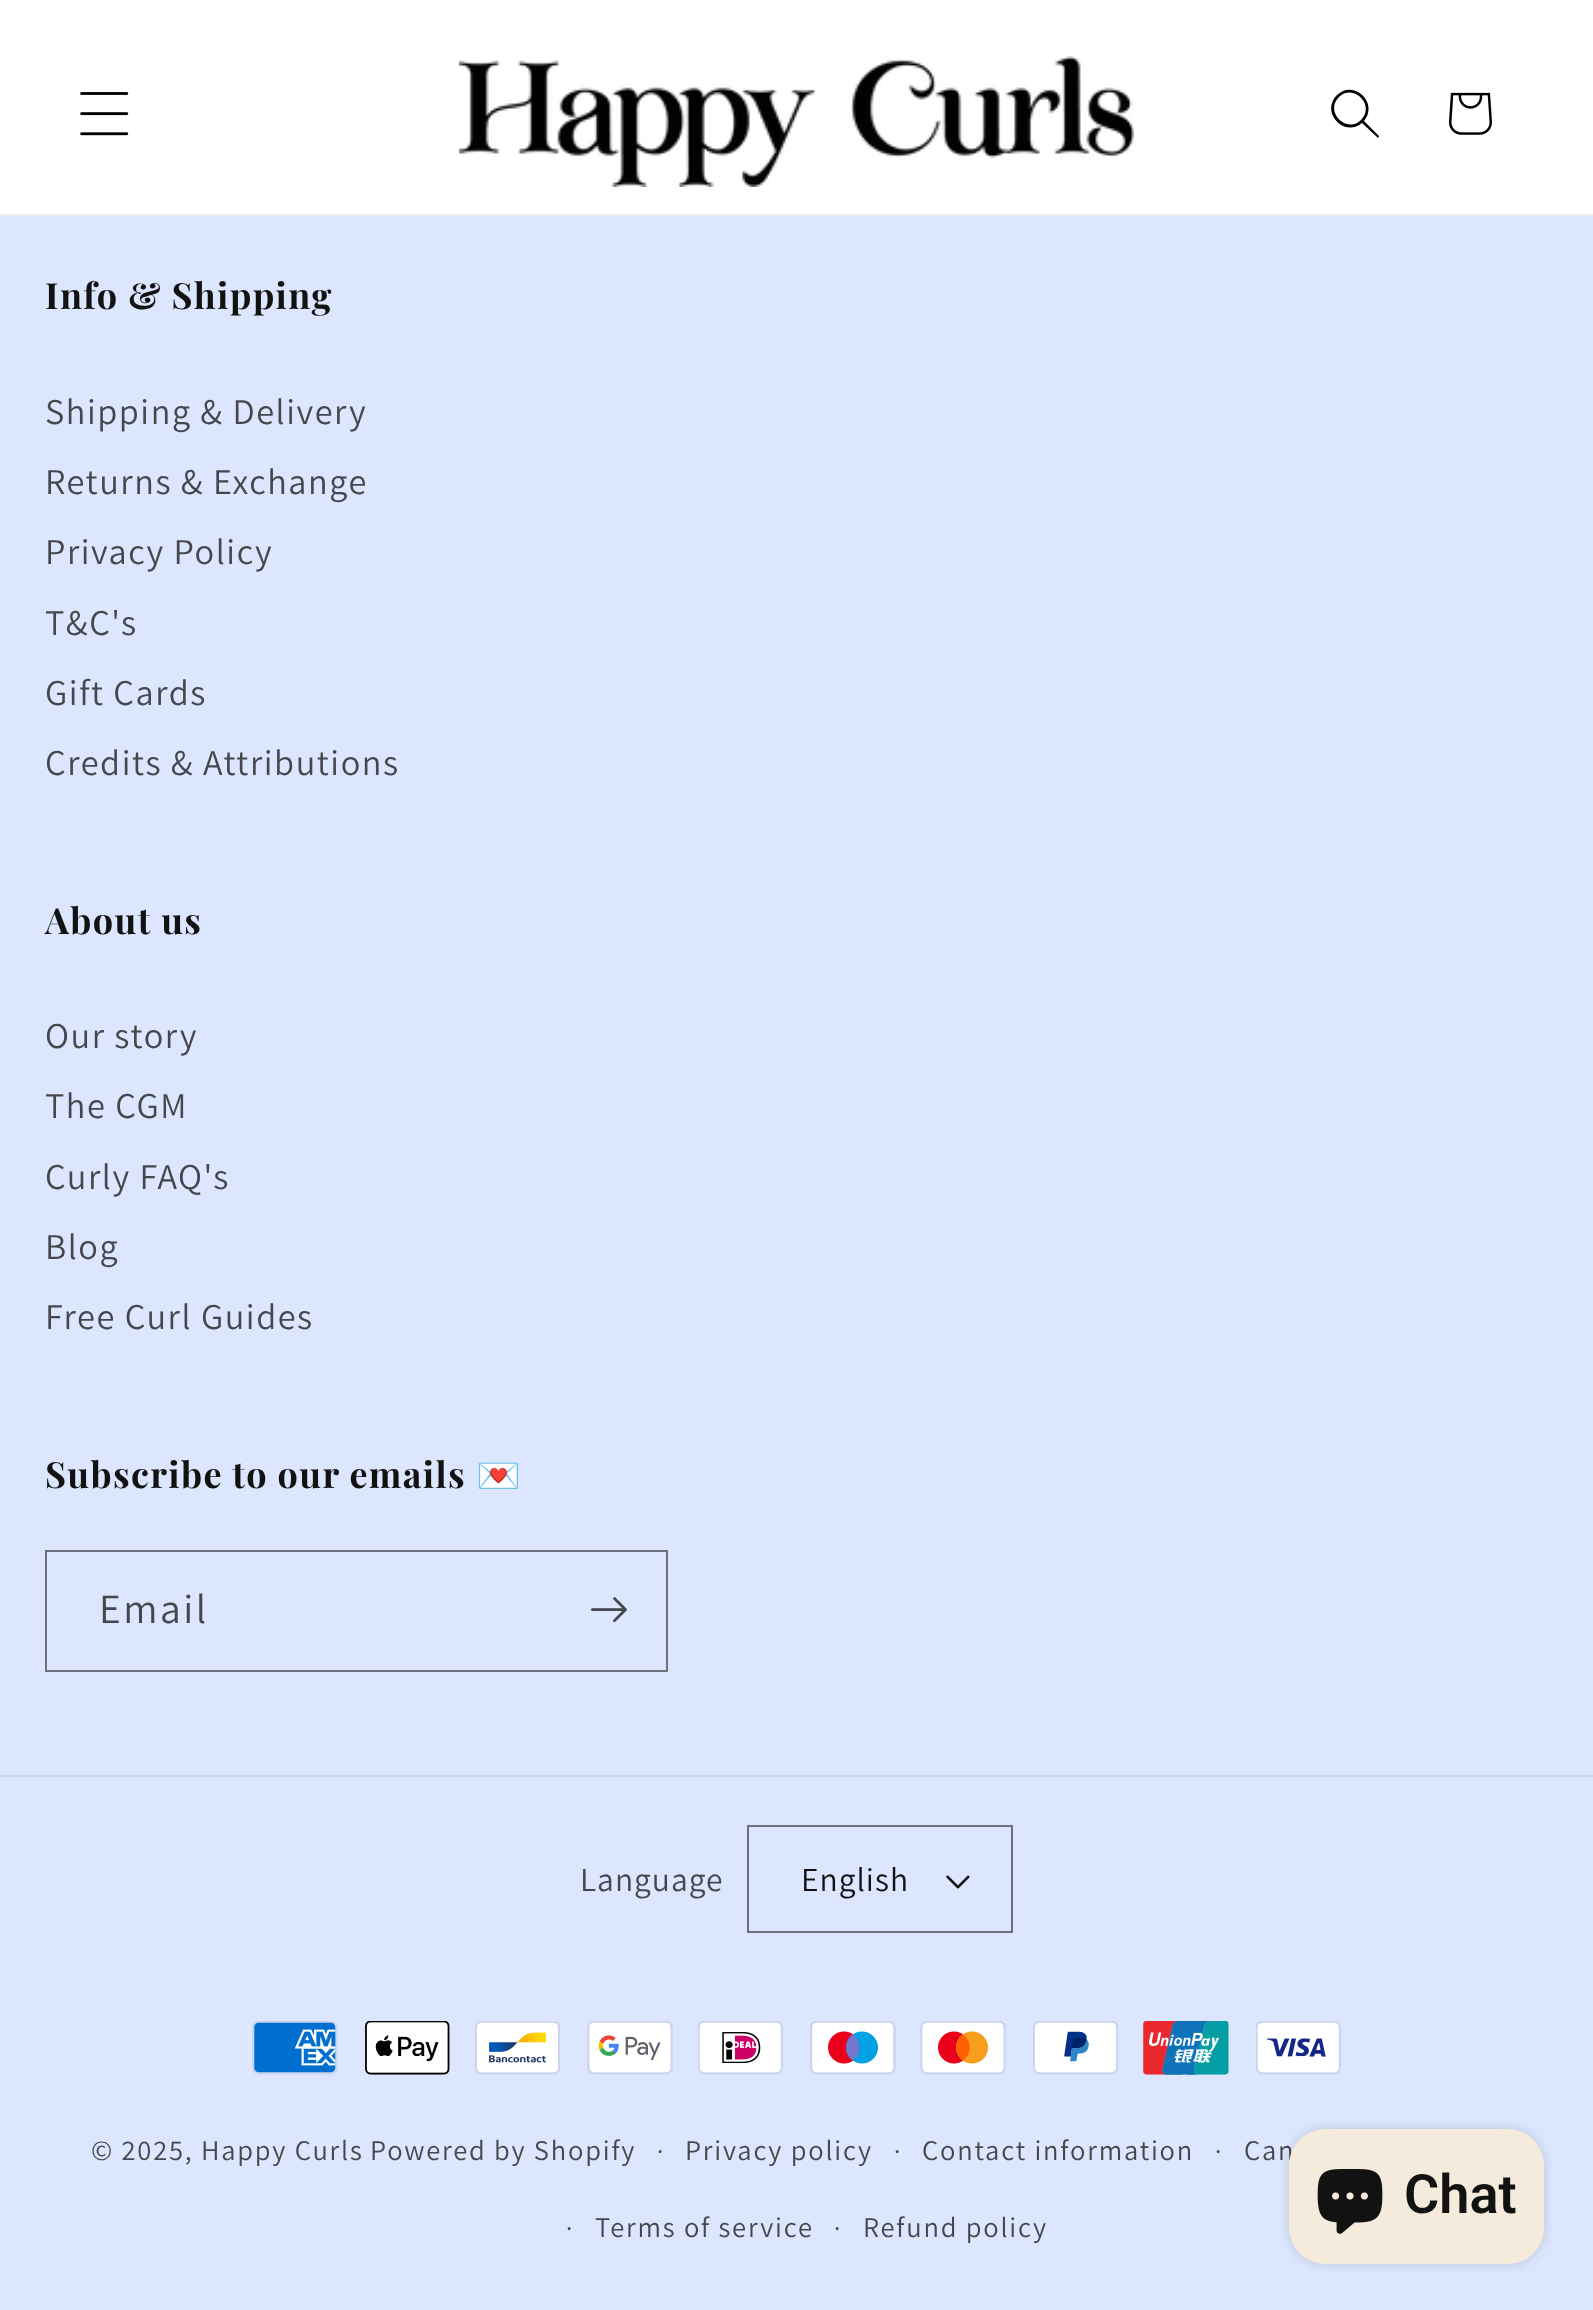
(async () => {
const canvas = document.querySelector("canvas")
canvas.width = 1593
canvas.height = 2310
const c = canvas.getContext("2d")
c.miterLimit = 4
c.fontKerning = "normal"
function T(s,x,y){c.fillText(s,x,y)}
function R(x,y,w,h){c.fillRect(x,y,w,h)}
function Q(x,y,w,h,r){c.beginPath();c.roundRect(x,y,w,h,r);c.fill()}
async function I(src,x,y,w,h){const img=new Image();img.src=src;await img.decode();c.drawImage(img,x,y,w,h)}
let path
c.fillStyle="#dce6fe"
R(0,0,1593,2310)
c.fillStyle="#fff"
R(0,0,1593,214)
c.fillStyle="#ebebeb"
R(0,214,1593,2)
await I("1.png",80,92,49,44)
await I("2.png",459,56,675,131)
c.fillStyle="#000"
path = new Path2D("M1361 120c-14 14-37-8-22-23c14-14 37 8 22 23m1 3c-18 15-42-11-25-28c17-16 42 8 27 26l15 15c0 2-2 2-2 1z")
c.fill(path,"evenodd")
await I("3.png",1449,92,43,43)
c.letterSpacing="1.35px"
c.font="bold 36px Playfair Display"
c.fillStyle="#121212"
T("Info & Shipping",45,309)
c.letterSpacing="1.55px"
c.font="36.25px Assistant"
c.fillStyle="#45474d"
T("Shipping & Delivery",45,424)
T("Returns & Exchange",45,494)
T("Privacy Policy",45,564)
T("T&C's",45,635)
T("Gift Cards",45,705)
T("Credits & Attributions",45,775)
c.letterSpacing="1.35px"
c.font="bold 36px Playfair Display"
c.fillStyle="#121212"
T("About us",45,934)
c.letterSpacing="1.55px"
c.font="36.25px Assistant"
c.fillStyle="#45474d"
T("Our story",45,1048)
T("The CGM",45,1118)
T("Curly FAQ's",45,1189)
T("Blog",45,1259)
T("Free Curl Guides",45,1329)
c.letterSpacing="1.35px"
c.font="bold 36px Playfair Display"
c.fillStyle="#121212"
T("Subscribe to our emails",45,1488)
c.font="bold 36px Noto Color Emoji"
T("💌",476,1488)
c.strokeStyle="#6d717c"
c.lineWidth=2
c.strokeRect(46,1551,621,120)
c.letterSpacing="2.5px"
c.font="41.5px Assistant"
c.fillStyle="#45474d"
T("Email",99,1623)
await I("4.png",590,1597,37,25)
c.fillStyle="#ccd5eb"
R(0,1775,1593,2)
c.letterSpacing="1px"
c.font="33.5px Assistant"
c.fillStyle="#45474d"
T("Language",580,1891)
await I("5.png",946,1875,24,14)
c.strokeRect(748,1826,264,106)
c.fillStyle="#121212"
T("English",801,1891)
await I("6.png",252,2021,86,54)
await I("7.png",365,2021,85,54)
await I("8.png",475,2021,85,54)
await I("9.png",587,2021,86,54)
await I("10.png",698,2021,85,54)
await I("11.png",810,2021,86,54)
await I("12.png",920,2021,86,54)
await I("13.png",1033,2021,85,54)
await I("14.png",1143,2021,86,54)
await I("15.png",1256,2021,85,54)
c.letterSpacing="1.8px"
c.font="28.5px Assistant"
c.fillStyle="#45474d"
T("© 2025, Happy Curls",91,2160)
T("Powered by Shopify",370,2160)
c.font="26px Assistant"
T("·",657,2160)
c.font="28.5px Assistant"
T("Privacy policy",685,2160)
c.font="26px Assistant"
T("·",894,2160)
c.font="28.5px Assistant"
T("Contact information",922,2160)
c.font="26px Assistant"
T("·",1215,2160)
c.font="28.5px Assistant"
T("Can",1244,2160)
c.font="26px Assistant"
T("·",566,2237)
c.font="28.5px Assistant"
T("Terms of service",595,2237)
c.font="26px Assistant"
T("·",834,2237)
c.font="28.5px Assistant"
T("Refund policy",863,2237)
c.fillStyle="#00000026"
c.filter="blur(5.5px)"
c.beginPath()
c.roundRect(1289,2129,255,135,36)
c.fill()
c.filter="none"
c.fillStyle="#f4ebdc"
Q(1289,2129,255,135,36)
await I("16.png",1317,2169,66,65)
c.letterSpacing="0px"
c.font="600 54px Roboto"
c.fillStyle="#121212"
T("Chat",1404,2213)
})()
